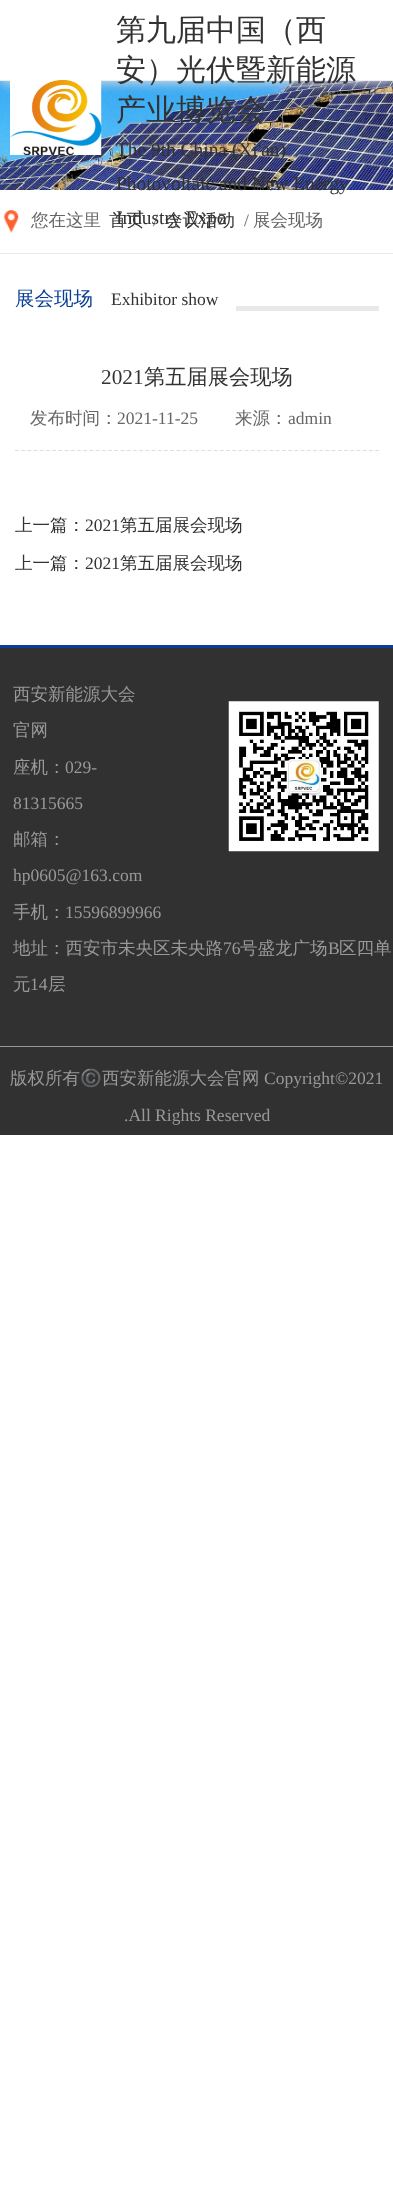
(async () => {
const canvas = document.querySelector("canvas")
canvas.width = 393
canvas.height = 2197
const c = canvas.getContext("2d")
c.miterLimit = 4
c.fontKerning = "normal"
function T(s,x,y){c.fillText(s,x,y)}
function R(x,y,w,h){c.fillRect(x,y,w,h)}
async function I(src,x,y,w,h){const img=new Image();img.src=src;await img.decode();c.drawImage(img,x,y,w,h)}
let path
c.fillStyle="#fff"
R(0,0,393,2197)
await I("2.png",0,81,393,109)
c.fillStyle="#ddd"
c.filter="blur(6px)"
c.beginPath()
c.rect(1,1,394,82)
c.fill()
c.filter="none"
c.fillStyle="#fff"
R(0,0,393,80)
c.fillStyle="#eee"
R(0,80,393,1)
await I("1.png",10,80,92,75)
c.font="500 30px WenQuanYi Zen Hei"
c.fillStyle="#333"
T("第九届中国（西",116,40)
T("安）光伏暨新能源",116,80)
T("产业博览会",116,120)
c.font="19.4px Liberation Serif"
T("The 9th China (Xi'an)",116,156)
T("Photovoltaic and New Energy",116,190)
c.font="500 17.5px WenQuanYi Zen Hei"
T("首页",109,226)
c.font="17.5px Liberation Serif"
c.fillStyle="#666"
T("/",153,226)
c.font="500 17.5px WenQuanYi Zen Hei"
c.fillStyle="#333"
T("会议活动",165,226)
c.font="19.4px Liberation Serif"
T("Industry Expo",116,224)
await I("3.png",3,210,17,23)
c.fillStyle="#eaeaea"
R(0,253,393,1)
c.font="500 17.5px WenQuanYi Zen Hei"
c.fillStyle="#666"
T("您在这里",31,226)
c.font="17.5px Liberation Serif"
T("/",244,226)
c.font="500 17.5px WenQuanYi Zen Hei"
T("展会现场",253,226)
c.font="500 19.5px WenQuanYi Zen Hei"
c.fillStyle="#093e96"
T("展会现场",15,305)
c.font="17.5px Liberation Serif"
c.fillStyle="#333"
T("Exhibitor show",111,305)
c.fillStyle="#e9e9e9"
R(236,306,143,5)
c.font="21.25px Liberation Serif"
c.fillStyle="#333"
T("2021",101,384)
c.font="500 21.25px WenQuanYi Zen Hei"
T("第五届展会现场",144,384)
path = new Path2D("M15 450.5h364")
c.strokeStyle="#ddd"
c.lineWidth=1.2
c.setLineDash([3.75,2.46])
c.stroke(path)
c.font="500 17.5px WenQuanYi Zen Hei"
c.fillStyle="#666"
T("发布时间：",30,424)
c.font="17.5px Liberation Serif"
T("2021-11-25",117,424)
c.font="500 17.5px WenQuanYi Zen Hei"
T("来源：",235,424)
c.font="17.5px Liberation Serif"
T("admin",288,424)
c.font="500 17.5px WenQuanYi Zen Hei"
c.fillStyle="#333"
T("上一篇：",15,531)
c.font="17.5px Liberation Serif"
T("2021",85,531)
c.font="500 17.5px WenQuanYi Zen Hei"
T("第五届展会现场",120,531)
T("上一篇：",15,569)
c.font="17.5px Liberation Serif"
T("2021",85,569)
c.font="500 17.5px WenQuanYi Zen Hei"
T("第五届展会现场",120,569)
c.fillStyle="#313131"
R(0,648,393,487)
c.fillStyle="#093e96"
R(0,645,393,3)
c.fillStyle="#999"
T("西安新能源大会",13,700)
T("官网",13,736)
T("座机：",13,773)
c.font="17.5px Liberation Serif"
T("029-",65,773)
T("81315665",13,809)
c.font="500 17.5px WenQuanYi Zen Hei"
T("邮箱：",13,845)
c.font="17.5px Liberation Serif"
T("hp0605@163.com",13,881)
c.font="500 17.5px WenQuanYi Zen Hei"
T("手机：",13,918)
c.font="17.5px Liberation Serif"
T("15596899966",65,918)
c.font="500 17.5px WenQuanYi Zen Hei"
T("地址：西安市未央区未央路",13,954)
c.font="17.5px Liberation Serif"
T("76",223,954)
c.font="500 17.5px WenQuanYi Zen Hei"
T("号盛龙广场",240,954)
c.font="17.5px Liberation Serif"
T("B",328,954)
c.font="500 17.5px WenQuanYi Zen Hei"
T("区四单",339,954)
T("元",13,990)
c.font="17.5px Liberation Serif"
T("14",30,990)
c.font="500 17.5px WenQuanYi Zen Hei"
T("层",48,990)
await I("4.png",228,701,151,151)
R(0,1046,393,1)
T("版权所有",10,1084)
c.font="17.5px Noto Color Emoji"
T("©️",80,1084)
c.font="500 17.5px WenQuanYi Zen Hei"
T("西安新能源大会官网",102,1084)
c.font="17.5px Liberation Serif"
T("Copyright©2021",264,1084)
T(".All Rights Reserved",124,1121)
})()
